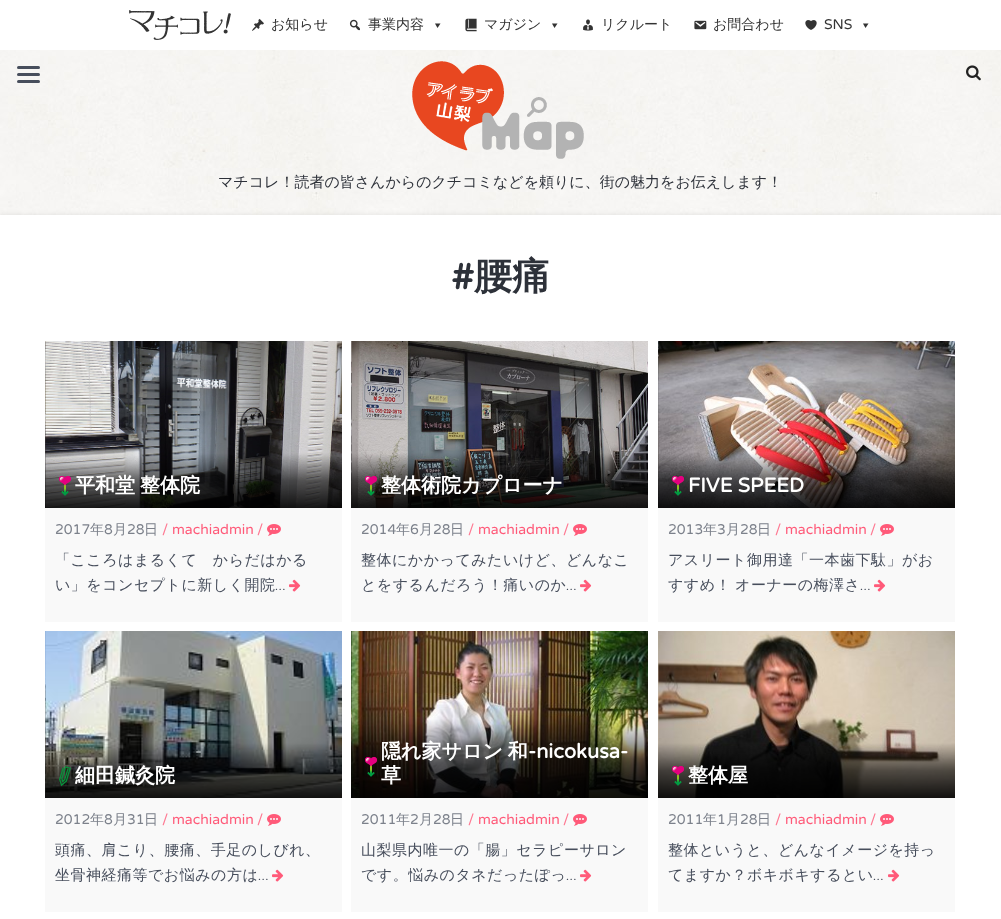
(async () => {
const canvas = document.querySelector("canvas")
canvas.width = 1001
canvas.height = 919
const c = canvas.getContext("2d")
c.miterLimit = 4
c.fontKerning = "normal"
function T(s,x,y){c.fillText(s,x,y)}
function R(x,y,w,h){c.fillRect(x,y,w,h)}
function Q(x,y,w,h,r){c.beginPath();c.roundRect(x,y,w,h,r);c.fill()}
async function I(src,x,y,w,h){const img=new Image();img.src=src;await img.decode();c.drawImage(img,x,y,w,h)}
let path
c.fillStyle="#fff"
R(0,0,1001,919)
await I("1.png",0,50,1001,165)
await I("2.png",129,10,102,30)
await I("3.png",252,18,12,13)
c.font="500 14px WenQuanYi Zen Hei"
c.fillStyle="#333"
T("お知らせ",271,29)
await I("4.png",349,19,11,12)
T("事業内容",368,29)
path = new Path2D("M440.5 23.5l-3 4.5l-2.5-4.5z")
c.fill(path)
await I("5.png",465,18,12,14)
T("マガジン",484,29)
path = new Path2D("M557.5 23.5l-3 4.5l-2.5-4.5z")
c.fill(path)
await I("6.png",583,19,10,12)
T("リクルート",601,29)
await I("7.png",694,20,13,10)
T("お問合わせ",713,29)
await I("8.png",805,20,12,10)
c.font="14px Varela Round"
T("SNS",824,29)
path = new Path2D("M868.5 23.5l-3 4.5l-2.5-4.5z")
c.fill(path)
c.fillStyle="#474e5c"
Q(17,73,23,3,1.5)
Q(17,66,23,3,1.5)
Q(17,80,23,3,1.5)
await I("9.png",966,65,15,16)
await I("10.png",412,61,172,98)
c.font="500 15px WenQuanYi Zen Hei"
c.fillStyle="#2d3139"
T("マチコレ！読者の皆さんからのクチコミなどを頼りに、街の魅力をお伝えします！",218,187)
c.fillStyle="#6464644d"
c.filter="blur(3px)"
c.beginPath()
c.rect(0,217,1001,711)
c.fill()
c.filter="none"
c.fillStyle="#fff"
R(0,215,1001,704)
c.font="bold 38px Varela Round"
c.fillStyle="#2d3139"
T("#",451,289)
c.font="bold 38px WenQuanYi Zen Hei"
T("腰痛",474,289)
c.fillStyle="#f9f9f9"
R(45,508,297,114)
await I("11.png",45,341,297,167)
await I("12.png",59,476,12,20)
c.wordSpacing="-1px"
c.font="bold 20px WenQuanYi Zen Hei"
c.fillStyle="#fff"
T("平和堂 整体院",75,492)
c.wordSpacing="0px"
c.font="14px Varela Round"
c.fillStyle="#7c818b"
T("2017",55,534)
c.font="500 14px WenQuanYi Zen Hei"
T("年",90,534)
c.font="14px Varela Round"
T("8",104,534)
c.font="500 14px WenQuanYi Zen Hei"
T("月",113,534)
c.font="14px Varela Round"
T("28",127,534)
c.font="500 14px WenQuanYi Zen Hei"
T("日",144,534)
c.font="14px Varela Round"
c.fillStyle="#fe7a93"
T("/",162,534)
c.fillStyle="#ff5a79"
T("machiadmin",172,534)
c.fillStyle="#fe7a93"
T("/",257,534)
await I("13.png",267,524,14,12)
c.letterSpacing="0.5px"
c.font="500 15px WenQuanYi Zen Hei"
c.fillStyle="#474e5c"
T("「こころはまるくて　からだはかる",55,565)
T("い」をコンセプトに新しく開院",55,590)
c.font="300 15px Lato"
T("…",275,590)
await I("14.png",289,579,12,13)
c.fillStyle="#f9f9f9"
R(351,508,297,114)
await I("15.png",351,341,297,167)
await I("16.png",365,476,12,20)
c.letterSpacing="0px"
c.font="bold 20px WenQuanYi Zen Hei"
c.fillStyle="#fff"
T("整体術院カプローナ",381,492)
c.font="14px Varela Round"
c.fillStyle="#7c818b"
T("2014",361,534)
c.font="500 14px WenQuanYi Zen Hei"
T("年",396,534)
c.font="14px Varela Round"
T("6",410,534)
c.font="500 14px WenQuanYi Zen Hei"
T("月",419,534)
c.font="14px Varela Round"
T("28",433,534)
c.font="500 14px WenQuanYi Zen Hei"
T("日",450,534)
c.font="14px Varela Round"
c.fillStyle="#fe7a93"
T("/",468,534)
c.fillStyle="#ff5a79"
T("machiadmin",478,534)
c.fillStyle="#fe7a93"
T("/",563,534)
await I("13.png",573,524,14,12)
c.letterSpacing="0.5px"
c.font="500 15px WenQuanYi Zen Hei"
c.fillStyle="#474e5c"
T("整体にかかってみたいけど、どんなこ",361,565)
T("とをするんだろう！痛いのか",361,590)
c.font="300 15px Lato"
T("…",566,590)
await I("14.png",580,579,12,13)
c.fillStyle="#f9f9f9"
R(658,508,297,114)
await I("17.png",658,341,297,167)
await I("18.png",672,476,12,20)
c.letterSpacing="0px"
c.font="bold 20px Varela Round"
c.fillStyle="#fff"
T("FIVE SPEED",688,492)
c.font="14px Varela Round"
c.fillStyle="#7c818b"
T("2013",668,534)
c.font="500 14px WenQuanYi Zen Hei"
T("年",703,534)
c.font="14px Varela Round"
T("3",717,534)
c.font="500 14px WenQuanYi Zen Hei"
T("月",726,534)
c.font="14px Varela Round"
T("28",740,534)
c.font="500 14px WenQuanYi Zen Hei"
T("日",757,534)
c.font="14px Varela Round"
c.fillStyle="#fe7a93"
T("/",775,534)
c.fillStyle="#ff5a79"
T("machiadmin",785,534)
c.fillStyle="#fe7a93"
T("/",870,534)
await I("13.png",880,524,14,12)
c.letterSpacing="0.5px"
c.font="500 15px WenQuanYi Zen Hei"
c.fillStyle="#474e5c"
T("アスリート御用達「一本歯下駄」がお",668,565)
c.wordSpacing="-1px"
T("すすめ！ オーナーの梅澤さ",668,590)
c.wordSpacing="0px"
c.font="300 15px Lato"
T("…",860,590)
await I("14.png",874,579,12,13)
c.fillStyle="#f9f9f9"
R(45,798,297,114)
await I("19.png",45,631,297,167)
await I("20.png",59,766,12,20)
c.letterSpacing="0px"
c.font="bold 20px WenQuanYi Zen Hei"
c.fillStyle="#fff"
T("細田鍼灸院",75,782)
c.font="14px Varela Round"
c.fillStyle="#7c818b"
T("2012",55,824)
c.font="500 14px WenQuanYi Zen Hei"
T("年",90,824)
c.font="14px Varela Round"
T("8",104,824)
c.font="500 14px WenQuanYi Zen Hei"
T("月",113,824)
c.font="14px Varela Round"
T("31",127,824)
c.font="500 14px WenQuanYi Zen Hei"
T("日",144,824)
c.font="14px Varela Round"
c.fillStyle="#fe7a93"
T("/",162,824)
c.fillStyle="#ff5a79"
T("machiadmin",172,824)
c.fillStyle="#fe7a93"
T("/",257,824)
await I("13.png",267,814,14,12)
c.letterSpacing="0.5px"
c.font="500 15px WenQuanYi Zen Hei"
c.fillStyle="#474e5c"
T("頭痛、肩こり、腰痛、手足のしびれ、",55,855)
T("坐骨神経痛等でお悩みの方は",55,880)
c.font="300 15px Lato"
T("…",258,880)
await I("14.png",272,869,12,13)
c.fillStyle="#f9f9f9"
R(351,798,297,114)
await I("21.png",351,631,297,167)
await I("22.png",365,757,12,20)
c.letterSpacing="0px"
c.wordSpacing="-1px"
c.font="bold 20px WenQuanYi Zen Hei"
c.fillStyle="#fff"
T("隠れ家サロン 和",381,758)
c.wordSpacing="0px"
c.font="bold 20px Varela Round"
T("-nicokusa-",528,758)
c.font="bold 20px WenQuanYi Zen Hei"
T("草",381,782)
c.font="14px Varela Round"
c.fillStyle="#7c818b"
T("2011",361,824)
c.font="500 14px WenQuanYi Zen Hei"
T("年",396,824)
c.font="14px Varela Round"
T("2",410,824)
c.font="500 14px WenQuanYi Zen Hei"
T("月",419,824)
c.font="14px Varela Round"
T("28",433,824)
c.font="500 14px WenQuanYi Zen Hei"
T("日",450,824)
c.font="14px Varela Round"
c.fillStyle="#fe7a93"
T("/",468,824)
c.fillStyle="#ff5a79"
T("machiadmin",478,824)
c.fillStyle="#fe7a93"
T("/",563,824)
await I("13.png",573,814,14,12)
c.letterSpacing="0.5px"
c.font="500 15px WenQuanYi Zen Hei"
c.fillStyle="#474e5c"
T("山梨県内唯一の「腸」セラピーサロン",361,855)
T("です。悩みのタネだったぽっ",361,880)
c.font="300 15px Lato"
T("…",566,880)
await I("14.png",580,869,12,13)
c.fillStyle="#f9f9f9"
R(658,798,297,114)
await I("23.png",658,631,297,167)
await I("24.png",672,766,12,20)
c.letterSpacing="0px"
c.font="bold 20px WenQuanYi Zen Hei"
c.fillStyle="#fff"
T("整体屋",688,782)
c.font="14px Varela Round"
c.fillStyle="#7c818b"
T("2011",668,824)
c.font="500 14px WenQuanYi Zen Hei"
T("年",703,824)
c.font="14px Varela Round"
T("1",717,824)
c.font="500 14px WenQuanYi Zen Hei"
T("月",726,824)
c.font="14px Varela Round"
T("28",740,824)
c.font="500 14px WenQuanYi Zen Hei"
T("日",757,824)
c.font="14px Varela Round"
c.fillStyle="#fe7a93"
T("/",775,824)
c.fillStyle="#ff5a79"
T("machiadmin",785,824)
c.fillStyle="#fe7a93"
T("/",870,824)
await I("13.png",880,814,14,12)
c.letterSpacing="0.5px"
c.font="500 15px WenQuanYi Zen Hei"
c.fillStyle="#474e5c"
T("整体というと、どんなイメージを持っ",668,855)
T("てますか？ボキボキするとい",668,880)
c.font="300 15px Lato"
T("…",873,880)
await I("14.png",888,869,12,13)
})()
